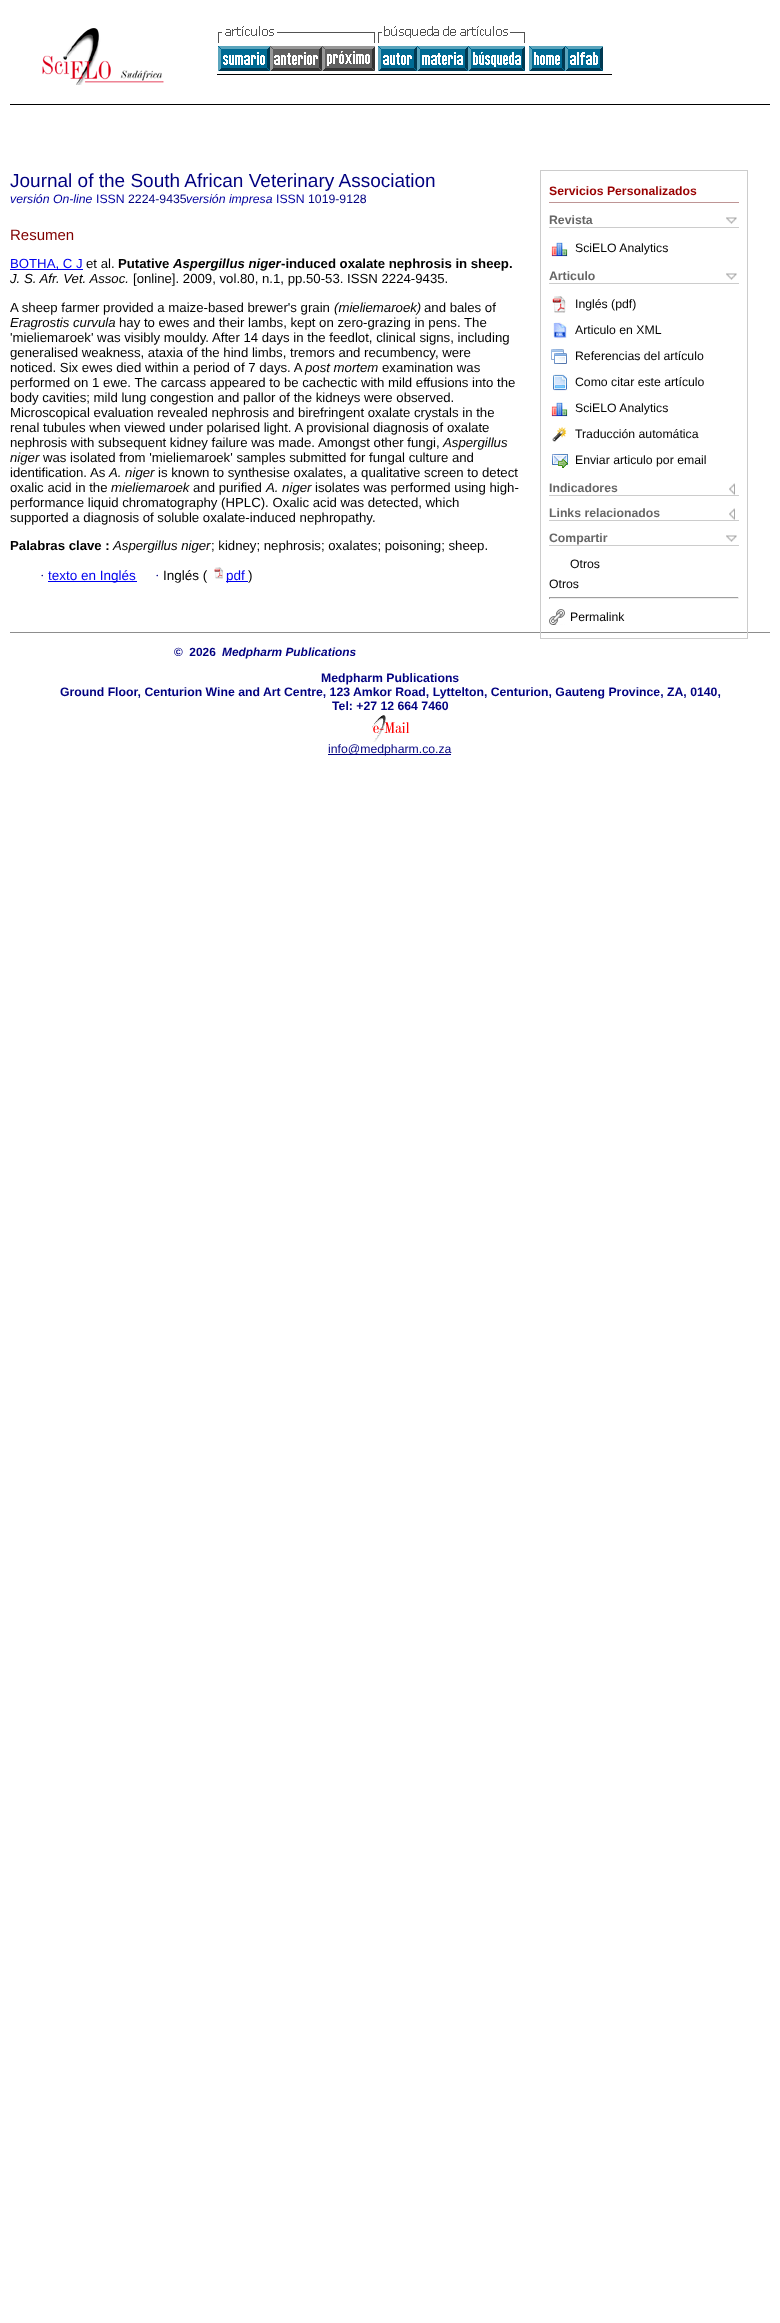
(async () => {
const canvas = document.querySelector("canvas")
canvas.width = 780
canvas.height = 2323
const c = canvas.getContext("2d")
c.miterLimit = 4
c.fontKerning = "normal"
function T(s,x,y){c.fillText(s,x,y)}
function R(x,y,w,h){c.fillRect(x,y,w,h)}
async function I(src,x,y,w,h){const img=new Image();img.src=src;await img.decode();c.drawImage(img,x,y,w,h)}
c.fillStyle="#fff"
R(0,0,780,2323)
c.fillStyle="#000"
R(10,104,760,1)
await I("1.png",42,28,122,57)
R(217,74,395,1)
await I("2.png",218,26,157,17)
await I("3.png",378,26,147,17)
await I("4.png",218,46,52,25)
await I("5.png",270,46,52,25)
await I("6.png",322,46,53,25)
await I("7.png",378,46,39,25)
await I("8.png",417,46,51,25)
await I("9.png",468,46,57,25)
await I("10.png",529,46,36,25)
await I("11.png",565,46,38,25)
c.fillStyle="#8d8d8d"
R(10,632,760,1)
c.font="19px Liberation Sans"
c.fillStyle="#000080"
T("Journal of the South African Veterinary Association",10,187)
c.font="italic 12.25px Liberation Sans"
c.fillStyle="#0000a0"
T("versión On-line",10,203)
c.font="12.25px Liberation Sans"
T("ISSN",96,203)
c.fillStyle="#000080"
T("2224-9435",128,203)
c.font="italic 12.25px Liberation Sans"
c.fillStyle="#0000a0"
T("versión impresa",186,203)
c.font="12.25px Liberation Sans"
T("ISSN",276,203)
c.fillStyle="#000080"
T("1019-9128",308,203)
c.strokeStyle="#ccc"
c.strokeRect(540.5,170.5,207,468)
c.fillStyle="#be9595"
R(549,202,190,1)
c.font="bold 12.25px Liberation Sans"
c.fillStyle="#900"
T("Servicios Personalizados",549,195)
await I("12.png",726,217,11,7)
c.fillStyle="#ccc"
R(549,227,190,1)
c.fillStyle="#666"
T("Revista",549,224)
await I("13.png",551,242,17,15)
c.font="12.25px Liberation Sans"
c.fillStyle="#000"
T("SciELO Analytics",575,252)
await I("12.png",726,273,11,7)
c.fillStyle="#ccc"
R(549,283,190,1)
c.font="bold 12.25px Liberation Sans"
c.fillStyle="#666"
T("Articulo",549,280)
await I("14.png",552,296,14,17)
c.font="12.25px Liberation Sans"
c.fillStyle="#000"
T("Inglés (pdf)",575,308)
await I("15.png",553,322,14,17)
T("Articulo en XML",575,334)
await I("16.png",551,349,16,15)
T("Referencias del artículo",575,360)
await I("17.png",553,374,15,17)
T("Como citar este artículo",575,386)
await I("13.png",551,402,17,15)
T("SciELO Analytics",575,412)
await I("18.png",552,427,15,15)
T("Traducción automática",575,438)
await I("19.png",549,453,21,15)
T("Enviar articulo por email",575,464)
await I("20.png",729,483,6,12)
c.fillStyle="#ccc"
R(549,495,190,1)
c.font="bold 12.25px Liberation Sans"
c.fillStyle="#666"
T("Indicadores",549,492)
await I("20.png",729,508,6,12)
c.fillStyle="#ccc"
R(549,520,190,1)
c.fillStyle="#666"
T("Links relacionados",549,517)
await I("12.png",726,535,11,7)
c.fillStyle="#ccc"
R(549,545,190,1)
c.fillStyle="#666"
T("Compartir",549,542)
c.font="12.25px Liberation Sans"
c.fillStyle="#000"
T("Otros",570,568)
T("Otros",549,588)
c.fillStyle="#9f9f9f"
R(549,597,190,1)
c.fillStyle="#eee"
R(738,597,1,2)
R(549,598,190,1)
c.fillStyle="#9f9f9f"
R(549,597,1,2)
await I("21.png",549,609,16,16)
c.fillStyle="#000"
T("Permalink",570,621)
c.font="15px Liberation Sans"
c.fillStyle="#800000"
T("Resumen",10,240)
c.fillStyle="#00e"
R(10,269,73,1)
c.font="13.2px Liberation Sans"
T("BOTHA, C J",10,268)
c.fillStyle="#000"
T("et al.",86,268)
c.font="bold 13.2px Liberation Sans"
T("Putative",118,268)
c.font="italic bold 13.2px Liberation Sans"
T("Aspergillus niger",173,268)
c.font="bold 13.2px Liberation Sans"
T("-induced oxalate nephrosis in sheep.",281,268)
c.font="italic 13.2px Liberation Sans"
T("J. S. Afr. Vet. Assoc.",10,283)
c.font="13.2px Liberation Sans"
T("[online]. 2009, vol.80, n.1, pp.50-53. ISSN 2224-9435.",133,283)
T("A sheep farmer provided a maize-based brewer's grain",10,312)
c.font="italic 13.2px Liberation Sans"
T("(mieliemaroek)",334,312)
c.font="13.2px Liberation Sans"
T("and bales of",424,312)
c.font="italic 13.2px Liberation Sans"
T("Eragrostis curvula",10,327)
c.font="13.2px Liberation Sans"
T("hay to ewes and their lambs, kept on zero-grazing in pens. The",119,327)
T("'mieliemaroek' was visibly mouldy. After 14 days in the feedlot, clinical signs, including",10,342)
T("generalised weakness, ataxia of the hind limbs, tremors and recumbency, were",10,357)
T("noticed. Six ewes died within a period of 7 days. A",10,372)
c.font="italic 13.2px Liberation Sans"
T("post mortem",305,372)
c.font="13.2px Liberation Sans"
T("examination was",382,372)
T("performed on 1 ewe. The carcass appeared to be cachectic with mild effusions into the",10,387)
T("body cavities; mild lung congestion and pallor of the kidneys were observed.",10,402)
T("Microscopical evaluation revealed nephrosis and birefringent oxalate crystals in the",10,417)
T("renal tubules when viewed under polarised light. A provisional diagnosis of oxalate",10,432)
T("nephrosis with subsequent kidney failure was made. Amongst other fungi,",10,447)
c.font="italic 13.2px Liberation Sans"
T("Aspergillus",443,447)
T("niger",10,462)
c.font="13.2px Liberation Sans"
T("was isolated from 'mieliemaroek' samples submitted for fungal culture and",43,462)
T("identification. As",10,477)
c.font="italic 13.2px Liberation Sans"
T("A. niger",109,477)
c.font="13.2px Liberation Sans"
T("is known to synthesise oxalates, a qualitative screen to detect",158,477)
T("oxalic acid in the",10,492)
c.font="italic 13.2px Liberation Sans"
T("mieliemaroek",111,492)
c.font="13.2px Liberation Sans"
T("and purified",193,492)
c.font="italic 13.2px Liberation Sans"
T("A. niger",266,492)
c.font="13.2px Liberation Sans"
T("isolates was performed using high-",315,492)
T("performance liquid chromatography (HPLC). Oxalic acid was detected, which",10,507)
T("supported a diagnosis of soluble oxalate-induced nephropathy.",10,522)
c.font="bold 13.2px Liberation Sans"
T("Palabras clave :",10,550)
c.font="italic 13.2px Liberation Sans"
T("Aspergillus niger",113,550)
c.font="13.2px Liberation Sans"
T("; kidney; nephrosis; oxalates; poisoning; sheep.",211,550)
c.font="13.5px Liberation Serif"
c.fillStyle="#000080"
T("·",40,580)
c.fillStyle="#00e"
R(48,581,89,1)
c.font="13.5px Liberation Sans"
T("texto en Inglés",48,580)
c.font="13.5px Liberation Serif"
c.fillStyle="#000080"
T("·",155,580)
c.font="13.5px Liberation Sans"
c.fillStyle="#000"
T("Inglés (",163,580)
await I("22.png",214,567,9,12)
c.fillStyle="#00e"
R(226,581,22,1)
T("pdf",226,580)
c.fillStyle="#000"
T(")",248,580)
c.font="bold 11.9px Liberation Sans"
c.fillStyle="#000080"
T("©  2026",174,656)
c.font="italic bold 11.9px Liberation Sans"
T("Medpharm Publications",222,656)
c.font="bold 12.25px Liberation Sans"
T("Medpharm Publications",321,682)
T("Ground Floor, Centurion Wine and Art Centre, 123 Amkor Road, Lyttelton, Centurion, Gauteng Province, ZA, 0140,",60,696)
T("Tel: +27 12 664 7460",332,710)
await I("23.png",372,715,38,27)
R(328,754,123,1)
c.font="12.25px Liberation Sans"
T("info@medpharm.co.za",328,753)
})()
